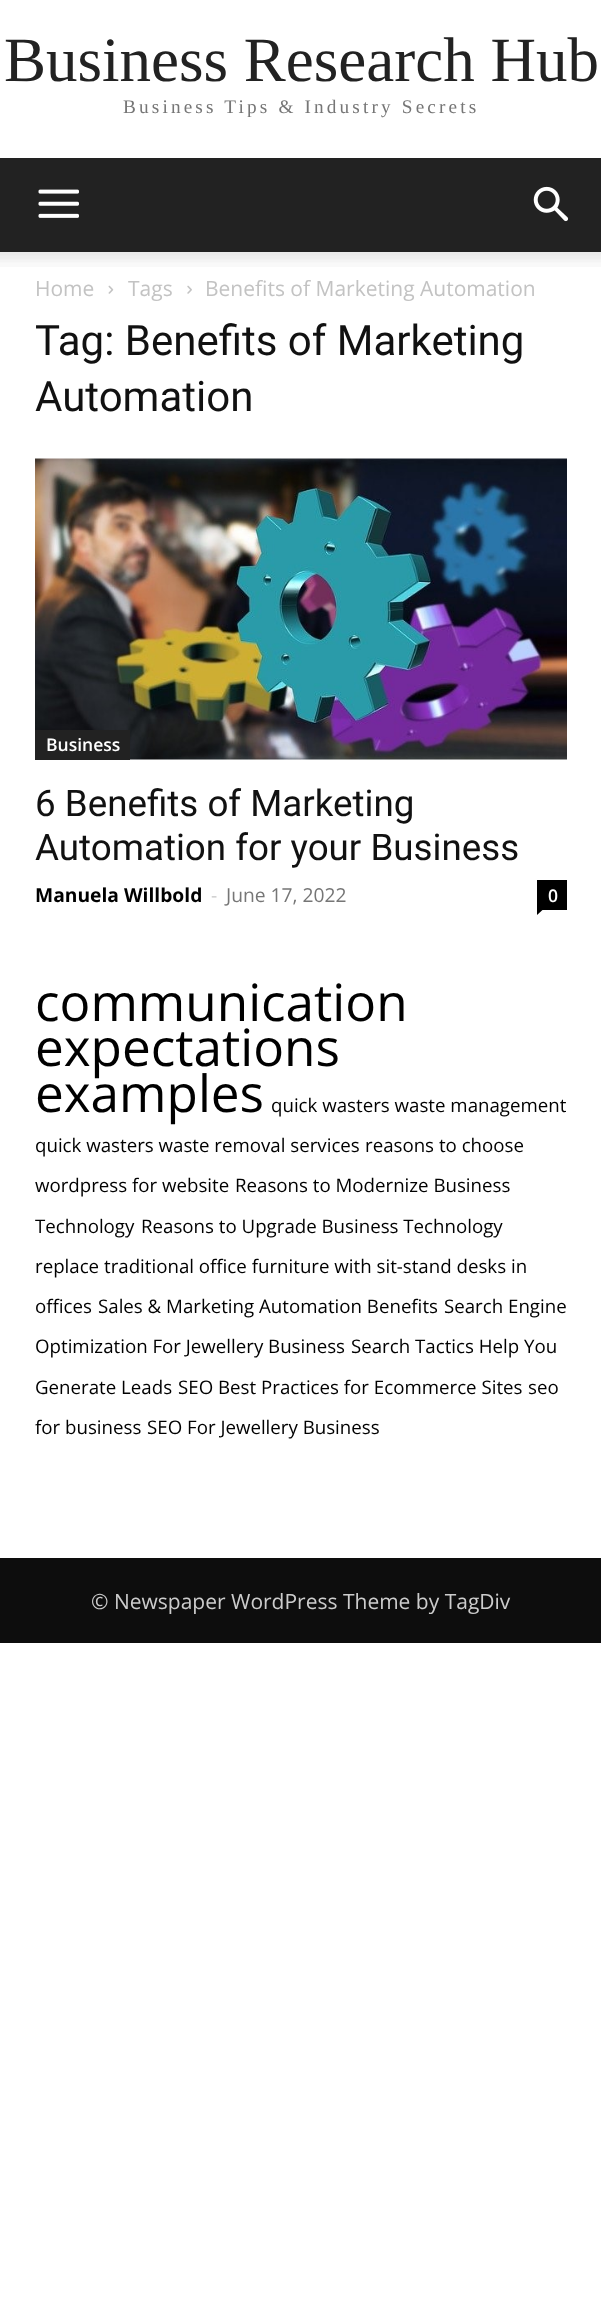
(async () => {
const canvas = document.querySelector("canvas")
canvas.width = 601
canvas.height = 2323
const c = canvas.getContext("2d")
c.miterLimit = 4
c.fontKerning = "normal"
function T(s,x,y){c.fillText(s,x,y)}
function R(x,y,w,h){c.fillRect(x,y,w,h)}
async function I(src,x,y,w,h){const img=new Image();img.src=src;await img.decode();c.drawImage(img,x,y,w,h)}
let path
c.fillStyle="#fff"
R(0,0,601,2323)
c.font="63px Liberation Serif"
c.fillStyle="#222"
T("Business Research Hub",4,81)
c.letterSpacing="3.15px"
c.font="19.25px Liberation Serif"
c.fillStyle="#767676"
T("Business Tips & Industry Secrets",123,113)
c.fillStyle="#222"
R(0,158,601,94)
await I("1.png",38,189,41,29)
await I("2.png",533,186,36,36)
await I("3.png",0,252,601,15)
c.letterSpacing="0px"
c.font="21px Open Sans"
c.fillStyle="#c3c3c3"
T("Home",35,296)
await I("4.png",108,285,6,9)
T("Tags",128,296)
await I("5.png",187,285,5,9)
T("Benefits of Marketing Automation",205,296)
c.font="42px Roboto"
c.fillStyle="#111"
T("Tag: Benefits of Marketing",35,355)
T("Automation",35,411)
await I("6.png",35,458,532,302)
c.fillStyle="#222"
R(35,730,95,30)
c.font="600 17.5px Open Sans"
c.fillStyle="#fff"
T("Business",46,751)
c.font="36.75px Roboto"
c.fillStyle="#111"
T("6 Benefits of Marketing",35,816)
T("Automation for your Business",35,860)
c.font="bold 19.25px Open Sans"
c.fillStyle="#000"
T("Manuela Willbold",35,902)
c.font="19.25px Open Sans"
c.fillStyle="#ccc"
T("-",211,902)
c.fillStyle="#767676"
T("June 17, 2022",226,902)
c.fillStyle="#000"
R(537,880,30,30)
c.font="600 17.5px Open Sans"
c.fillStyle="#fff"
T("0",548,902)
c.fillStyle="#000"
path = new Path2D("M537 910h5.5l-5.5 5z")
c.fill(path)
c.font="51.25px Open Sans"
T("communication",35,1021)
T("expectations",35,1066)
T("examples",35,1112)
c.font="18.7px Open Sans"
T("quick wasters waste management",271,1112)
T("quick wasters waste removal services",35,1152)
T("reasons to choose",365,1152)
T("wordpress for website",35,1192)
T("Reasons to Modernize Business",235,1192)
T("Technology",35,1233)
T("Reasons to Upgrade Business Technology",141,1233)
T("replace traditional office furniture with sit-stand desks in",35,1273)
T("offices",35,1313)
T("Sales & Marketing Automation Benefits",98,1313)
T("Search Engine",444,1313)
T("Optimization For Jewellery Business",35,1353)
T("Search Tactics Help You",351,1353)
T("Generate Leads",35,1394)
T("SEO Best Practices for Ecommerce Sites",178,1394)
T("seo",528,1394)
T("for business",35,1434)
T("SEO For Jewellery Business",147,1434)
c.fillStyle="#0d0d0d"
R(0,1558,601,85)
c.font="21px Open Sans"
c.fillStyle="#ccc"
T("© Newspaper WordPress Theme by TagDiv",91,1609)
})()
